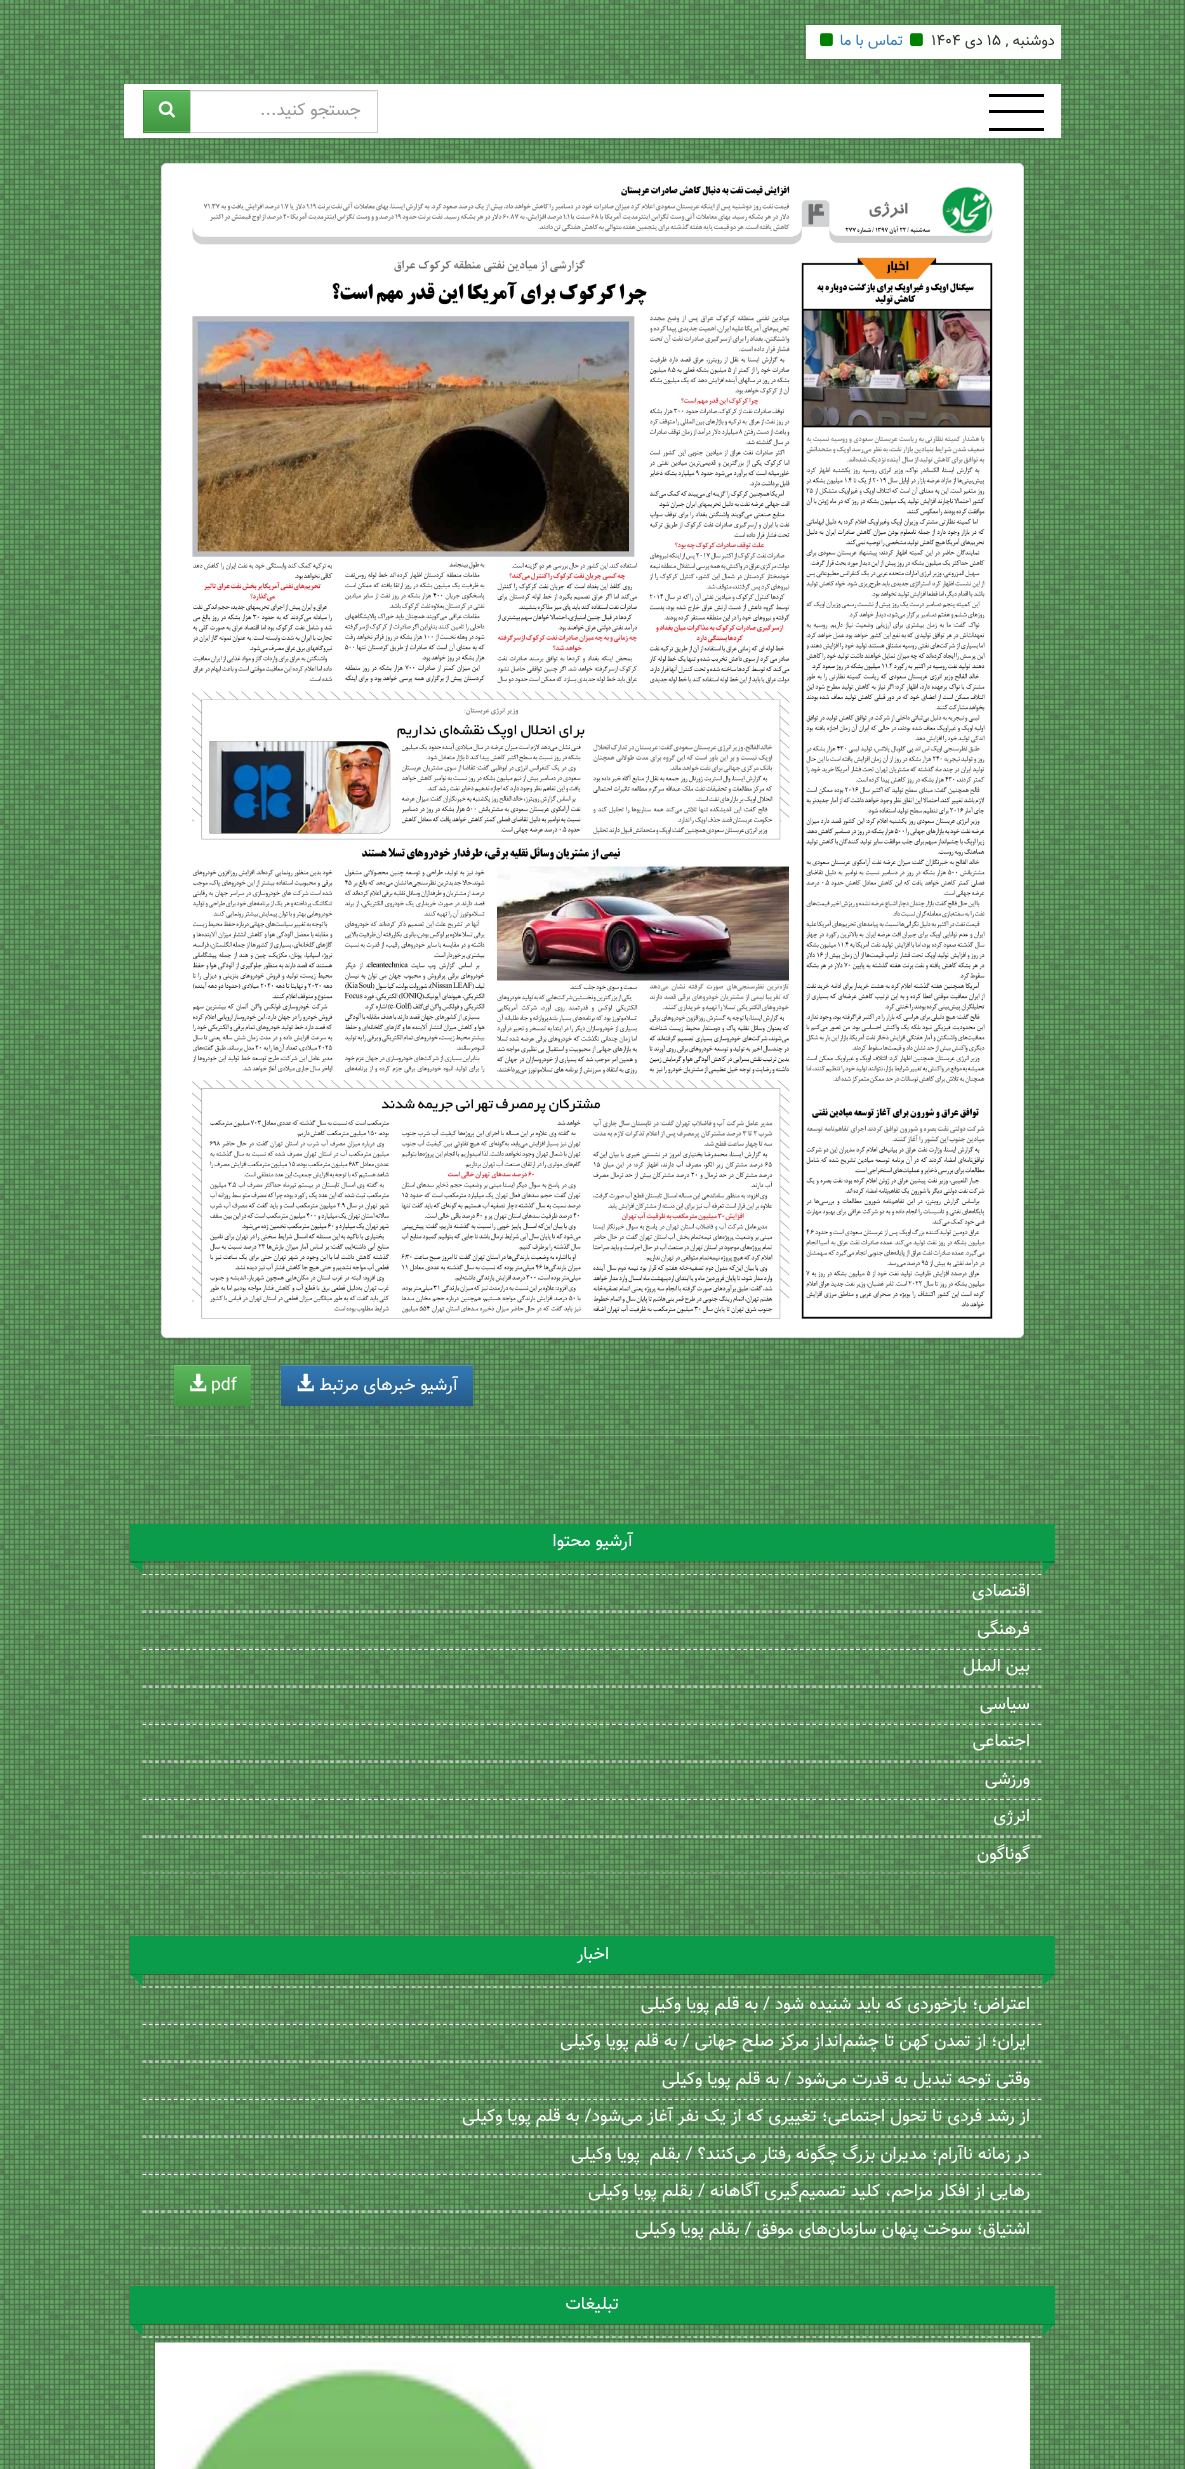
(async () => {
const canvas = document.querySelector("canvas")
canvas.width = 1185
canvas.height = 2469
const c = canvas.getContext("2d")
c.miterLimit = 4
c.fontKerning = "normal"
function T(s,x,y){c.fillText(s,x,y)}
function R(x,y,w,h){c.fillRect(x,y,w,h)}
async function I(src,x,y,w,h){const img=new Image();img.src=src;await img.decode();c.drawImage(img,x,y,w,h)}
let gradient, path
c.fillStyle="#fff"
R(0,0,1185,2469)
await I("1.png",0,0,1185,2469)
c.fillStyle="#fdfffd"
R(806,25,255,34)
c.direction="rtl"
c.font="15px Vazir"
c.fillStyle="#333"
T("دوشنبه ,",1055,45)
c.direction="ltr"
T("۱۵",987,45)
c.direction="rtl"
T("دی",983,45)
c.direction="ltr"
T("۱۴۰۴",931,45)
await I("2.png",910,33,13,14)
c.direction="rtl"
c.fillStyle="#337ab7"
T("تماس با ما",903,45)
await I("2.png",820,33,13,14)
c.fillStyle="#fff"
R(124,84,937,54)
c.fillStyle="#000"
R(989,110,55,3)
R(989,94,55,3)
R(989,128,55,3)
c.fillStyle="#00000012"
c.filter="blur(0.5px)"
c.beginPath()
c.rect(143,91,48,43)
c.fill()
c.filter="none"
c.fillStyle="#ececec"
R(191,91,185,1)
c.fillStyle="#5cb85c"
R(144,131,46,1)
gradient = c.createLinearGradient(167,91,167,131)
gradient.addColorStop(0,"#5cb85c")
gradient.addColorStop(1,"#419641")
c.fillStyle = gradient
R(144,92,46,39)
c.fillStyle="#74c374"
R(144,91,46,1)
c.strokeStyle="#3e8f3e"
c.strokeRect(143.5,90.5,47,42)
c.strokeStyle="#ccc"
c.strokeRect(190.5,90.5,187,42)
c.font="17.5px Vazir"
c.fillStyle="#999"
T("جستجو کنید...",361,115)
await I("3.png",158,101,17,17)
c.fillStyle="#00000012"
c.filter="blur(1px)"
c.beginPath()
c.roundRect(161,164,863,1175,5)
c.fill()
c.filter="none"
c.fillStyle="#fff"
c.beginPath()
c.roundRect(161.5,163.5,862,1174,4.5)
c.fill()
c.strokeStyle="#ddd"
c.stroke()
await I("4.png",192,185,801,1134)
c.fillStyle="#00000012"
c.filter="blur(0.5px)"
c.beginPath()
c.rect(281,1366,192,42)
c.fill()
c.filter="none"
gradient = c.createLinearGradient(377,1365,377,1406)
gradient.addColorStop(0,"#337ab7")
gradient.addColorStop(1,"#265a88")
c.fillStyle = gradient
R(281,1366,192,40)
c.fillStyle="#528ec1"
R(281,1365,192,1)
c.fillStyle="#fff"
T("آرشیو خبرهای مرتبط",458,1390)
await I("5.png",297,1373,17,19)
c.fillStyle="#00000012"
c.filter="blur(0.5px)"
c.beginPath()
c.rect(174,1366,77,42)
c.fill()
c.filter="none"
gradient = c.createLinearGradient(213,1365,213,1406)
gradient.addColorStop(0,"#5cb85c")
gradient.addColorStop(1,"#419641")
c.fillStyle = gradient
R(174,1366,77,40)
c.fillStyle="#74c374"
R(174,1365,77,1)
c.direction="ltr"
c.fillStyle="#fff"
T("pdf",211,1390)
await I("6.png",190,1373,17,19)
c.fillStyle="#ffffff40"
path = new Path2D("M148 1436h890c2 0 3 2 3 4c0-3-1-5-4-5h-889c-3 0-4 2-4 5c0-2 1-4 4-4z")
c.fill(path)
c.fillStyle="#0a9c4a"
path = new Path2D("M1042.5 1574v-13h12.5z")
c.fill(path)
path = new Path2D("M142.5 1561v13l-12.5-13z")
c.fill(path)
c.fillStyle="#00000033"
c.filter="blur(0.5px)"
c.beginPath()
c.rect(130,1525,925,38)
c.fill()
c.filter="none"
c.fillStyle="#0a9c4a"
R(130,1524,925,37)
c.direction="rtl"
c.fillStyle="#fff"
T("آرشیو محتوا",633,1546)
path = new Path2D("M142.5 1574.5h900")
c.strokeStyle="#fff"
c.lineWidth=1.2
c.setLineDash([3.75,2.51])
c.stroke(path)
path = new Path2D("M142.5 1610.5h900")
c.strokeStyle="#ababab"
c.stroke(path)
T("اقتصادی",1030,1596)
path = new Path2D("M142.5 1612h900")
c.strokeStyle="#fff"
c.stroke(path)
path = new Path2D("M142.5 1648h900")
c.strokeStyle="#ababab"
c.stroke(path)
T("فرهنگی",1030,1634)
path = new Path2D("M142.5 1649.5h900")
c.strokeStyle="#fff"
c.stroke(path)
path = new Path2D("M142.5 1685.5h900")
c.strokeStyle="#ababab"
c.stroke(path)
T("بین الملل",1030,1671)
path = new Path2D("M142.5 1687h900")
c.strokeStyle="#fff"
c.stroke(path)
path = new Path2D("M142.5 1723h900")
c.strokeStyle="#ababab"
c.stroke(path)
T("سیاسی",1030,1709)
path = new Path2D("M142.5 1724.5h900")
c.strokeStyle="#fff"
c.stroke(path)
path = new Path2D("M142.5 1760.5h900")
c.strokeStyle="#ababab"
c.stroke(path)
T("اجتماعی",1030,1746)
path = new Path2D("M142.5 1762h900")
c.strokeStyle="#fff"
c.stroke(path)
path = new Path2D("M142.5 1798h900")
c.strokeStyle="#ababab"
c.stroke(path)
T("ورزشی",1030,1784)
path = new Path2D("M142.5 1799.5h900")
c.strokeStyle="#fff"
c.stroke(path)
path = new Path2D("M142.5 1835.5h900")
c.strokeStyle="#ababab"
c.stroke(path)
T("انرژی",1030,1821)
path = new Path2D("M142.5 1837h900")
c.strokeStyle="#fff"
c.stroke(path)
path = new Path2D("M142.5 1873h900")
c.strokeStyle="#ababab"
c.stroke(path)
T("گوناگون",1030,1859)
c.fillStyle="#0a9c4a"
path = new Path2D("M1042.5 1986v-12h12.5z")
c.fill(path)
path = new Path2D("M142.5 1974v12l-12.5-12z")
c.fill(path)
c.fillStyle="#00000033"
c.filter="blur(0.5px)"
c.beginPath()
c.rect(130,1938,925,37)
c.fill()
c.filter="none"
c.fillStyle="#0a9c4a"
R(130,1936,925,38)
c.fillStyle="#fff"
T("اخبار",609,1959)
path = new Path2D("M142.5 1987h900")
c.strokeStyle="#fff"
c.stroke(path)
path = new Path2D("M142.5 2023h900")
c.strokeStyle="#ababab"
c.stroke(path)
T("اعتراض؛ بازخوردی که باید شنیده شود / به قلم پویا وکیلی",1030,2009)
path = new Path2D("M142.5 2024.5h900")
c.strokeStyle="#fff"
c.stroke(path)
path = new Path2D("M142.5 2060.5h900")
c.strokeStyle="#ababab"
c.stroke(path)
T("ایران؛ از تمدن کهن تا چشم‌انداز مرکز صلح جهانی / به قلم",1030,2046)
T("پویا وکیلی",629,2046)
path = new Path2D("M142.5 2062h900")
c.strokeStyle="#fff"
c.stroke(path)
path = new Path2D("M142.5 2098h900")
c.strokeStyle="#ababab"
c.stroke(path)
T("وقتی توجه تبدیل به قدرت می‌شود / به قلم پویا وکیلی",1030,2084)
path = new Path2D("M142.5 2099.5h900")
c.strokeStyle="#fff"
c.stroke(path)
path = new Path2D("M142.5 2135.5h900")
c.strokeStyle="#ababab"
c.stroke(path)
T("از رشد فردی تا تحول اجتماعی؛ تغییری که از یک نفر آغاز می‌شود/ به قلم پویا وکیلی",1030,2121)
path = new Path2D("M142.5 2137h900")
c.strokeStyle="#fff"
c.stroke(path)
path = new Path2D("M142.5 2173h900")
c.strokeStyle="#ababab"
c.stroke(path)
T("در زمانه ناآرام؛ مدیران بزرگ چگونه رفتار می‌کنند؟ / بقلم  پویا وکیلی",1030,2159)
path = new Path2D("M142.5 2174.5h900")
c.strokeStyle="#fff"
c.stroke(path)
path = new Path2D("M142.5 2210.5h900")
c.strokeStyle="#ababab"
c.stroke(path)
T("رهایی از افکار مزاحم، کلید تصمیم‌گیری آگاهانه / بقلم",1030,2196)
T("پویا وکیلی",657,2196)
path = new Path2D("M142.5 2212h900")
c.strokeStyle="#fff"
c.stroke(path)
path = new Path2D("M142.5 2248h900")
c.strokeStyle="#ababab"
c.stroke(path)
T("اشتیاق؛ سوخت پنهان سازمان‌های موفق / بقلم",1030,2234)
T("پویا وکیلی",704,2234)
c.fillStyle="#0a9c4a"
path = new Path2D("M1042.5 2336v-12h12.5z")
c.fill(path)
path = new Path2D("M142.5 2324v12l-12.5-12z")
c.fill(path)
c.fillStyle="#00000033"
c.filter="blur(0.5px)"
c.beginPath()
c.rect(130,2288,925,37)
c.fill()
c.filter="none"
c.fillStyle="#0a9c4a"
R(130,2286,925,38)
c.fillStyle="#fff"
T("تبلیغات",619,2309)
path = new Path2D("M142.5 2337h900")
c.strokeStyle="#fff"
c.stroke(path)
await I("7.png",155,2342,875,127)
})()
